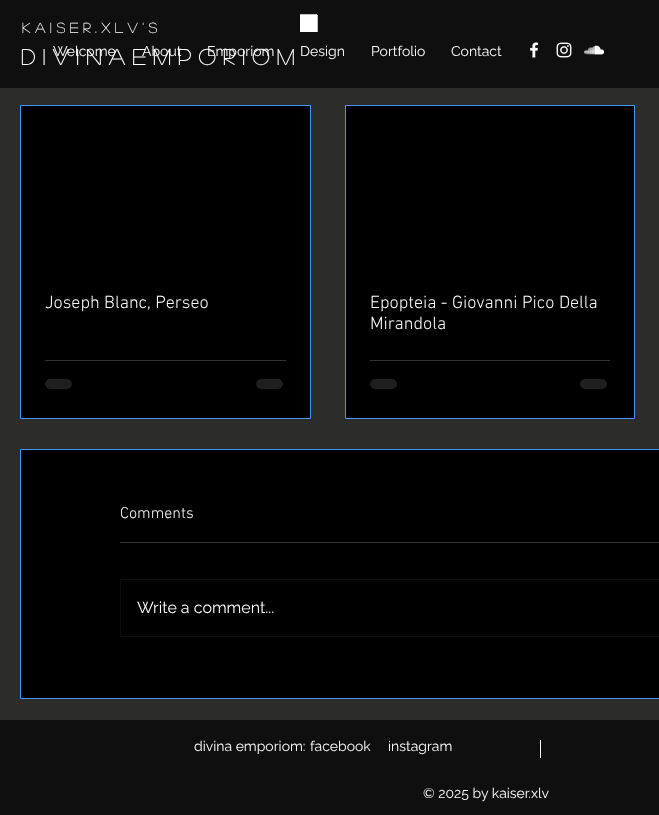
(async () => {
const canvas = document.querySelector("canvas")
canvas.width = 659
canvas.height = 815
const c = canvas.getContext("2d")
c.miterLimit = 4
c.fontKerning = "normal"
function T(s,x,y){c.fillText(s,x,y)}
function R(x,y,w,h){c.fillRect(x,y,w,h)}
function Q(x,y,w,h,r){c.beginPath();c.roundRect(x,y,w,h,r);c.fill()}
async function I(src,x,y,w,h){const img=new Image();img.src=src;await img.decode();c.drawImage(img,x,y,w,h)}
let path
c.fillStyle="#2c2c2b"
R(0,0,659,815)
c.fillStyle="#0f0f0f"
R(0,0,659,88)
c.font="bold 14px 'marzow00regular'"
c.fillStyle="#fff"
T("k a i s e r . x l v ' s",22,33)
R(300,15,17,17)
path = new Path2D("M300 15h17v17v-17z")
c.strokeStyle="#fff"
c.stroke(path)
c.font="14px Raleway"
T("Welcome",53,56)
T("About",142,56)
T("Emporiom",207,56)
c.font="bold 22px 'marzow00regular'"
T("D I V I N A E M P O R I O M",21,65)
c.font="14px Raleway"
T("Design",300,56)
T("Portfolio",371,56)
T("Contact",451,56)
await I("1.png",530,42,9,16)
await I("2.png",556,42,16,16)
await I("3.png",584,45,20,10)
c.fillStyle="#000"
c.beginPath()
c.rect(20.5,105.5,290,313)
c.fill()
c.strokeStyle="#4595f7"
c.stroke()
c.font="300 18px 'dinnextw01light'"
c.fillStyle="#fff"
T("Joseph Blanc, Perseo",45,308)
c.fillStyle="#333"
R(45,360,241,1)
c.fillStyle="#1f1f1f"
Q(45,379,27,10,5)
Q(256,379,27,10,5)
c.fillStyle="#000"
c.beginPath()
c.rect(345.5,105.5,289,313)
c.fill()
c.stroke()
c.fillStyle="#fff"
T("Epopteia - Giovanni Pico Della",370,308)
T("Mirandola",370,329)
c.fillStyle="#333"
R(370,360,240,1)
c.fillStyle="#1f1f1f"
Q(370,379,27,10,5)
Q(580,379,27,10,5)
c.fillStyle="#000"
c.beginPath()
c.rect(20.5,449.5,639,249)
c.fill()
c.stroke()
c.font="300 16px 'dinnextw01light'"
c.fillStyle="#fff"
T("Comments",120,518)
c.fillStyle="#333"
R(120,542,539,1)
c.strokeStyle="#0d0d0d"
c.strokeRect(120.5,579.5,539,57)
c.font="16px Raleway"
c.fillStyle="#fff"
T("Write a comment...",137,613)
c.fillStyle="#0f0f0f"
R(0,720,659,95)
c.font="14px Raleway"
c.fillStyle="#fff"
T("divina emporiom:",194,751)
T("facebook",310,751)
T("instagram",388,751)
R(540,740,1,18)
T("© 2025 by kaiser.xlv",423,798)
})()
